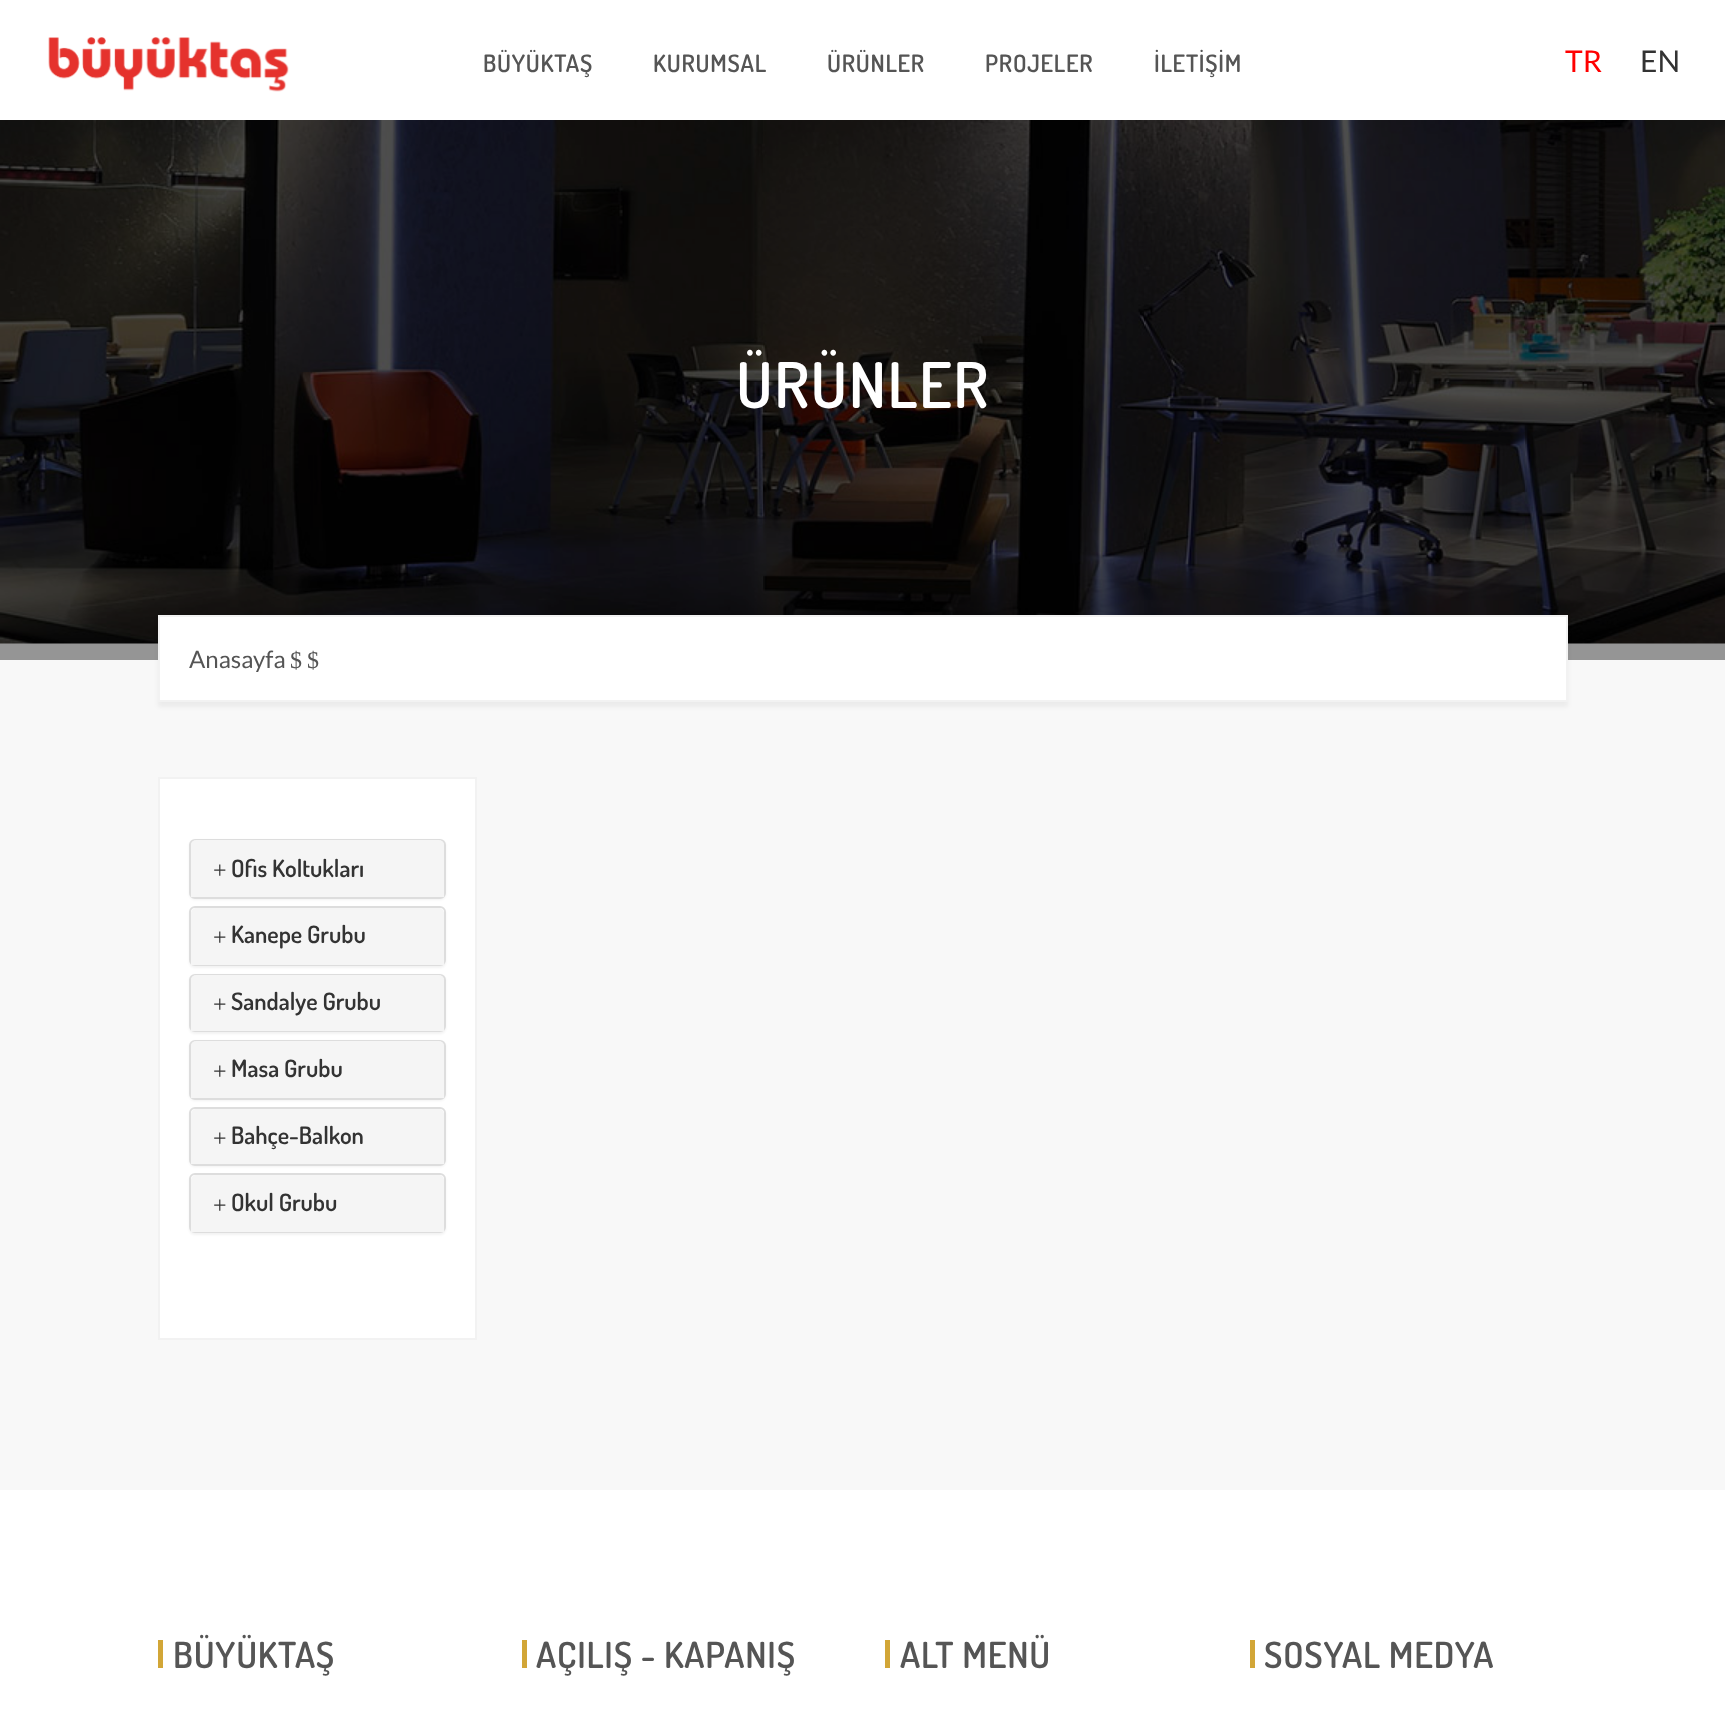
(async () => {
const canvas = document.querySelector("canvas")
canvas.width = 1725
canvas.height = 1734
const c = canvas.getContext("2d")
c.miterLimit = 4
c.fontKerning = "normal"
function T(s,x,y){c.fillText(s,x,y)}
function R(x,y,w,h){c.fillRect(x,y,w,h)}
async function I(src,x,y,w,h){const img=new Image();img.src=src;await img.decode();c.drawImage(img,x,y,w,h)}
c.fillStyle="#f8f8f8"
R(0,0,1725,1734)
c.fillStyle="#959595"
R(0,643,1725,17)
c.fillStyle="#fff"
R(0,0,1725,120)
await I("1.png",48,37,241,55)
c.letterSpacing="0.75px"
c.font="600 24px Dosis"
c.fillStyle="#555"
T("BÜYÜKTAŞ",483,72)
T("KURUMSAL",653,72)
T("ÜRÜNLER",827,72)
T("PROJELER",985,72)
T("İLETİŞİM",1154,72)
c.letterSpacing="0px"
c.font="30px Lato"
c.fillStyle="#f00"
T("TR",1565,72)
c.fillStyle="#333"
T("EN",1640,72)
await I("2.png",0,120,1725,524)
c.letterSpacing="1.5px"
c.font="600 63px Dosis"
c.fillStyle="#fff"
T("ÜRÜNLER",736,408)
c.fillStyle="#0000000d"
c.filter="blur(2px)"
c.beginPath()
c.rect(158,620,1410,87)
c.fill()
c.filter="none"
c.fillStyle="#fff"
c.beginPath()
c.rect(159,616,1408,85)
c.fill()
c.strokeStyle="#f2f2f2"
c.lineWidth=2
c.stroke()
c.letterSpacing="0px"
c.font="24px Lato"
c.fillStyle="#555"
T("Anasayfa",189,668)
c.font="24px Liberation Serif"
T("$",290,668)
T("$",307,668)
c.fillStyle="#fff"
c.beginPath()
c.rect(159,778,317,561)
c.fill()
c.stroke()
c.fillStyle="#0000000d"
c.filter="blur(1px)"
c.beginPath()
c.roundRect(189,840,257,60,6)
c.fill()
c.filter="none"
c.beginPath()
c.roundRect(190,840,255,58,5)
c.strokeStyle="#ddd"
c.stroke()
c.fillStyle="#f5f5f5"
c.beginPath()
c.roundRect(191,840,253,57,[5,5,0,0])
c.fill()
c.fillStyle="#333"
T("+",213,878)
c.font="600 24px Dosis"
T("Ofis Koltukları",231,877)
c.fillStyle="#0000000d"
c.filter="blur(1px)"
c.beginPath()
c.roundRect(189,908,257,60,6)
c.fill()
c.filter="none"
c.fillStyle="#fff"
c.beginPath()
c.roundRect(190,907,255,58,5)
c.fill()
c.stroke()
c.fillStyle="#f5f5f5"
c.beginPath()
c.roundRect(191,908,253,57,[5,5,0,0])
c.fill()
c.font="24px Liberation Serif"
c.fillStyle="#333"
T("+",213,945)
c.font="600 24px Dosis"
T("Kanepe Grubu",231,943)
c.fillStyle="#0000000d"
c.filter="blur(1px)"
c.beginPath()
c.roundRect(189,975,257,59,6)
c.fill()
c.filter="none"
c.beginPath()
c.roundRect(190,975,255,56,5)
c.stroke()
c.fillStyle="#f5f5f5"
c.beginPath()
c.roundRect(191,975,253,56,[5,5,0,0])
c.fill()
c.font="24px Liberation Serif"
c.fillStyle="#333"
T("+",213,1012)
c.font="600 24px Dosis"
T("Sandalye Grubu",231,1010)
c.fillStyle="#0000000d"
c.filter="blur(1px)"
c.beginPath()
c.roundRect(189,1041,257,60,6)
c.fill()
c.filter="none"
c.beginPath()
c.roundRect(190,1041,255,58,5)
c.stroke()
c.fillStyle="#f5f5f5"
c.beginPath()
c.roundRect(191,1041,253,57,[5,5,0,0])
c.fill()
c.font="24px Liberation Serif"
c.fillStyle="#333"
T("+",213,1079)
c.font="600 24px Dosis"
T("Masa Grubu",231,1077)
c.fillStyle="#0000000d"
c.filter="blur(1px)"
c.beginPath()
c.roundRect(189,1109,257,58,6)
c.fill()
c.filter="none"
c.fillStyle="#fff"
c.beginPath()
c.roundRect(190,1108,255,57,5)
c.fill()
c.stroke()
c.fillStyle="#f5f5f5"
c.beginPath()
c.roundRect(191,1109,253,55,[5,5,0,0])
c.fill()
c.font="24px Liberation Serif"
c.fillStyle="#333"
T("+",213,1146)
c.font="600 24px Dosis"
T("Bahçe-Balkon",231,1144)
c.fillStyle="#0000000d"
c.filter="blur(1px)"
c.beginPath()
c.roundRect(189,1175,257,60,6)
c.fill()
c.filter="none"
c.fillStyle="#fff"
c.beginPath()
c.roundRect(190,1174,255,58,5)
c.fill()
c.stroke()
c.fillStyle="#f5f5f5"
c.beginPath()
c.roundRect(191,1175,253,57,[5,5,0,0])
c.fill()
c.font="24px Liberation Serif"
c.fillStyle="#333"
T("+",213,1213)
c.font="600 24px Dosis"
T("Okul Grubu",231,1211)
c.fillStyle="#fff"
R(0,1490,1725,244)
c.fillStyle="#d2a637"
R(158,1640,5,28)
c.letterSpacing="0.75px"
c.font="600 36px Dosis"
c.fillStyle="#555"
T("BÜYÜKTAŞ",173,1668)
c.fillStyle="#d2a637"
R(522,1640,5,28)
c.fillStyle="#555"
T("AÇILIŞ - KAPANIŞ",536,1668)
c.fillStyle="#d2a637"
R(885,1640,5,28)
c.fillStyle="#555"
T("ALT MENÜ",900,1668)
c.fillStyle="#d2a637"
R(1250,1640,5,28)
c.fillStyle="#555"
T("SOSYAL MEDYA",1264,1668)
})()
